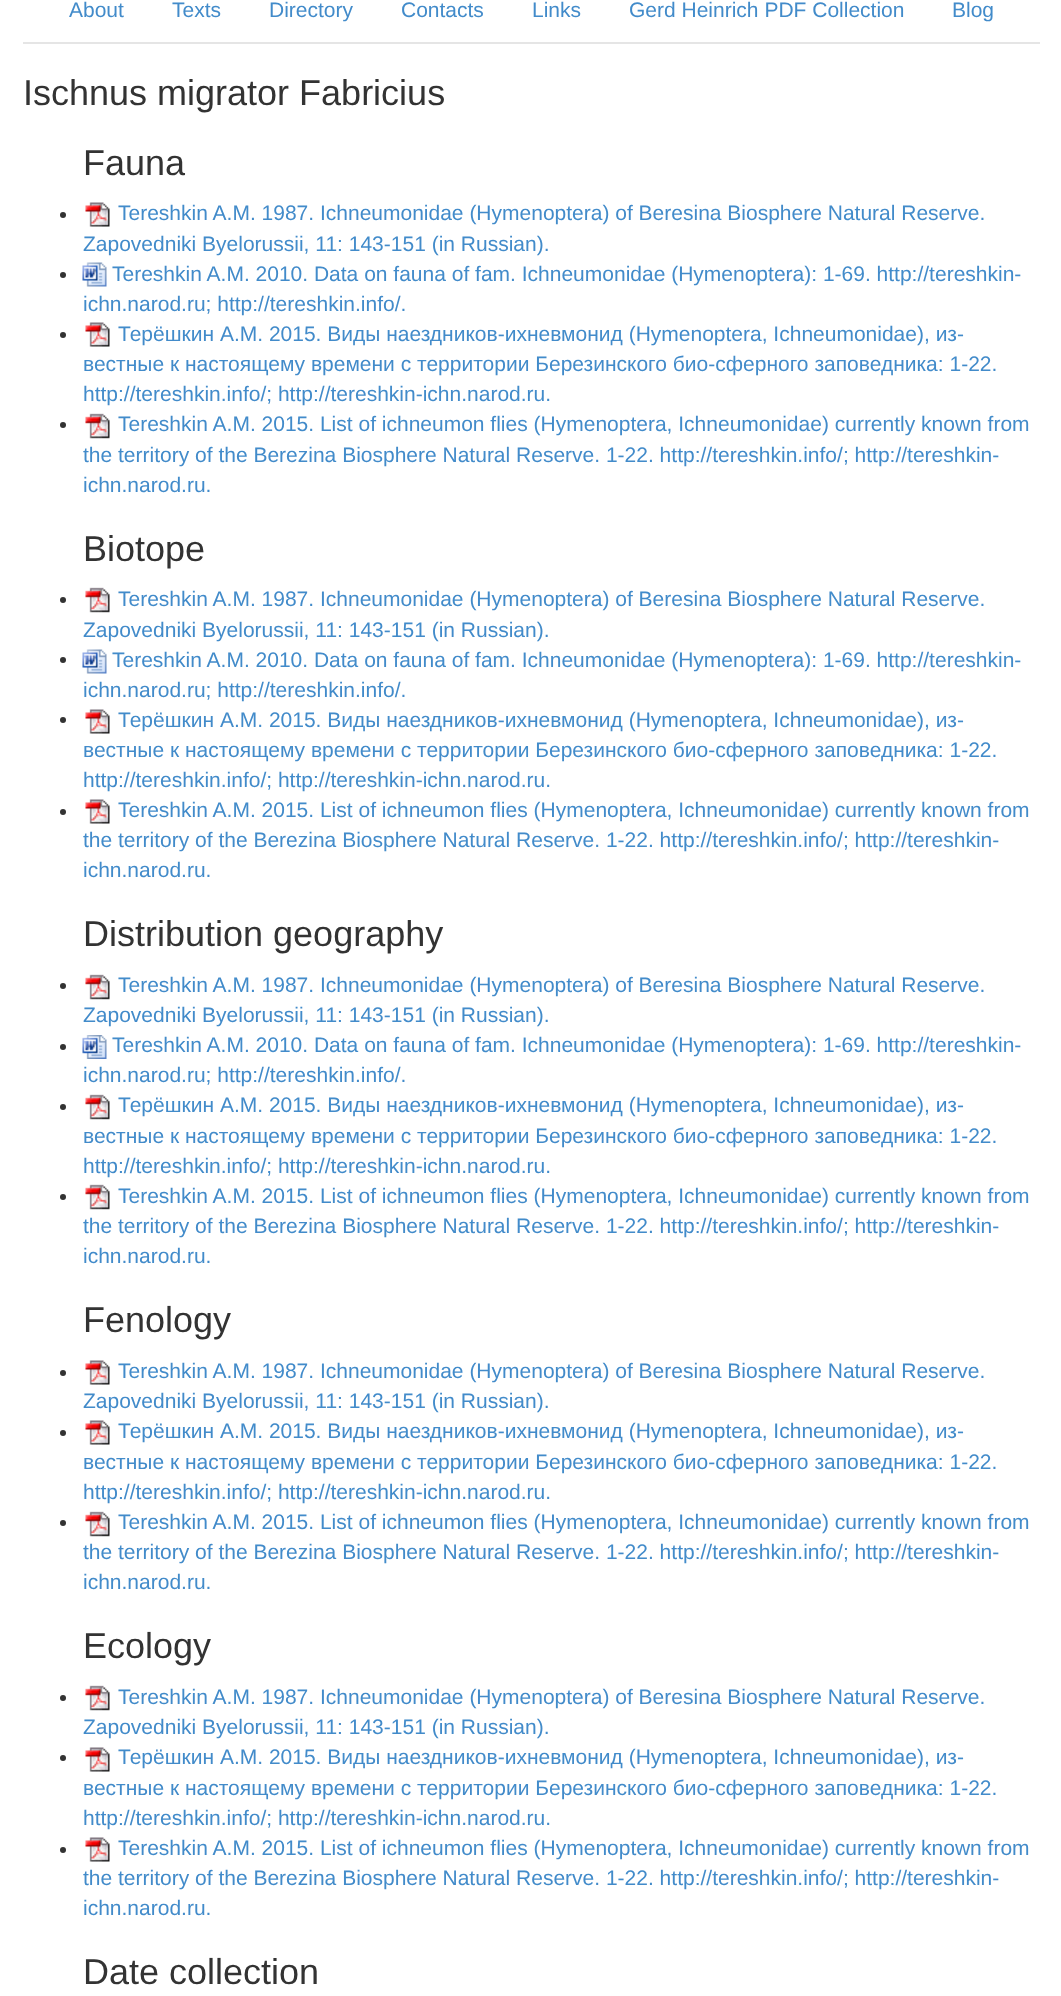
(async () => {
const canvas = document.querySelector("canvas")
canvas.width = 1061
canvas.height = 1996
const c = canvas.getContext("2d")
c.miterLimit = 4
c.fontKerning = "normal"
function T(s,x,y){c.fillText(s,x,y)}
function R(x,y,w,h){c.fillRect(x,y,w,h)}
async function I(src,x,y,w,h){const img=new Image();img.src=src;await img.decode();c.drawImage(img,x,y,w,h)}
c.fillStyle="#fff"
R(0,0,1061,1996)
c.fillStyle="#e5e5e5"
R(23,42,1017,2)
c.font="21px Liberation Sans"
c.fillStyle="#428bca"
T("About",69,17)
T("Texts",172,17)
T("Directory",269,17)
T("Contacts",401,17)
T("Links",532,17)
T("Gerd Heinrich PDF Collection",629,17)
T("Blog",952,17)
c.font="36px Liberation Sans"
c.fillStyle="#333"
T("Ischnus migrator Fabricius",23,105)
T("Fauna",83,175)
c.beginPath()
c.arc(63,215,3,0,7)
c.fill()
await I("1.png",85,202,25,25)
c.font="21px Liberation Sans"
c.fillStyle="#428bca"
T("Tereshkin A.M. 1987. Ichneumonidae (Hymenoptera) of Beresina Biosphere Natural Reserve.",118,220)
T("Zapovedniki Byelorussii, 11: 143-151 (in Russian).",83,251)
c.fillStyle="#333"
c.beginPath()
c.arc(63,275,3,0,7)
c.fill()
await I("2.png",82,262,25,25)
c.fillStyle="#428bca"
T("Tereshkin A.M. 2010. Data on fauna of fam. Ichneumonidae (Hymenoptera): 1-69. http://tereshkin-",112,281)
T("ichn.narod.ru; http://tereshkin.info/.",83,311)
c.fillStyle="#333"
c.beginPath()
c.arc(63,335,3,0,7)
c.fill()
await I("1.png",85,322,25,25)
c.fillStyle="#428bca"
T("Терёшкин А.М. 2015. Виды наездников-ихневмонид (Hymenoptera, Ichneumonidae), из-",118,341)
T("вестные к настоящему времени с территории Березинского био-сферного заповедника: 1-22.",83,371)
T("http://tereshkin.info/; http://tereshkin-ichn.narod.ru.",83,401)
c.fillStyle="#333"
c.beginPath()
c.arc(63,425,3,0,7)
c.fill()
await I("3.png",85,413,25,26)
c.fillStyle="#428bca"
T("Tereshkin A.M. 2015. List of ichneumon flies (Hymenoptera, Ichneumonidae) currently known from",118,431)
T("the territory of the Berezina Biosphere Natural Reserve. 1-22. http://tereshkin.info/; http://tereshkin-",83,462)
T("ichn.narod.ru.",83,492)
c.font="36px Liberation Sans"
c.fillStyle="#333"
T("Biotope",83,561)
c.beginPath()
c.arc(63,600,3,0,7)
c.fill()
await I("3.png",85,587,25,26)
c.font="21px Liberation Sans"
c.fillStyle="#428bca"
T("Tereshkin A.M. 1987. Ichneumonidae (Hymenoptera) of Beresina Biosphere Natural Reserve.",118,606)
T("Zapovedniki Byelorussii, 11: 143-151 (in Russian).",83,637)
c.fillStyle="#333"
c.beginPath()
c.arc(63,660,3,0,7)
c.fill()
await I("2.png",82,649,25,25)
c.fillStyle="#428bca"
T("Tereshkin A.M. 2010. Data on fauna of fam. Ichneumonidae (Hymenoptera): 1-69. http://tereshkin-",112,667)
T("ichn.narod.ru; http://tereshkin.info/.",83,697)
c.fillStyle="#333"
c.beginPath()
c.arc(63,720,3,0,7)
c.fill()
await I("1.png",85,709,25,25)
c.fillStyle="#428bca"
T("Терёшкин А.М. 2015. Виды наездников-ихневмонид (Hymenoptera, Ichneumonidae), из-",118,727)
T("вестные к настоящему времени с территории Березинского био-сферного заповедника: 1-22.",83,757)
T("http://tereshkin.info/; http://tereshkin-ichn.narod.ru.",83,787)
c.fillStyle="#333"
c.beginPath()
c.arc(63,812,3,0,7)
c.fill()
await I("1.png",85,799,25,25)
c.fillStyle="#428bca"
T("Tereshkin A.M. 2015. List of ichneumon flies (Hymenoptera, Ichneumonidae) currently known from",118,817)
T("the territory of the Berezina Biosphere Natural Reserve. 1-22. http://tereshkin.info/; http://tereshkin-",83,847)
T("ichn.narod.ru.",83,877)
c.font="36px Liberation Sans"
c.fillStyle="#333"
T("Distribution geography",83,946)
c.beginPath()
c.arc(63,986,3,0,7)
c.fill()
await I("3.png",85,974,25,26)
c.font="21px Liberation Sans"
c.fillStyle="#428bca"
T("Tereshkin A.M. 1987. Ichneumonidae (Hymenoptera) of Beresina Biosphere Natural Reserve.",118,992)
T("Zapovedniki Byelorussii, 11: 143-151 (in Russian).",83,1022)
c.fillStyle="#333"
c.beginPath()
c.arc(63,1047,3,0,7)
c.fill()
await I("4.png",82,1035,25,24)
c.fillStyle="#428bca"
T("Tereshkin A.M. 2010. Data on fauna of fam. Ichneumonidae (Hymenoptera): 1-69. http://tereshkin-",112,1052)
T("ichn.narod.ru; http://tereshkin.info/.",83,1082)
c.fillStyle="#333"
c.beginPath()
c.arc(63,1107,3,0,7)
c.fill()
await I("3.png",85,1094,25,26)
c.fillStyle="#428bca"
T("Терёшкин А.М. 2015. Виды наездников-ихневмонид (Hymenoptera, Ichneumonidae), из-",118,1112)
T("вестные к настоящему времени с территории Березинского био-сферного заповедника: 1-22.",83,1143)
T("http://tereshkin.info/; http://tereshkin-ichn.narod.ru.",83,1173)
c.fillStyle="#333"
c.beginPath()
c.arc(63,1197,3,0,7)
c.fill()
await I("3.png",85,1184,25,26)
c.fillStyle="#428bca"
T("Tereshkin A.M. 2015. List of ichneumon flies (Hymenoptera, Ichneumonidae) currently known from",118,1203)
T("the territory of the Berezina Biosphere Natural Reserve. 1-22. http://tereshkin.info/; http://tereshkin-",83,1233)
T("ichn.narod.ru.",83,1263)
c.font="36px Liberation Sans"
c.fillStyle="#333"
T("Fenology",83,1332)
c.beginPath()
c.arc(63,1373,3,0,7)
c.fill()
await I("1.png",85,1360,25,25)
c.font="21px Liberation Sans"
c.fillStyle="#428bca"
T("Tereshkin A.M. 1987. Ichneumonidae (Hymenoptera) of Beresina Biosphere Natural Reserve.",118,1378)
T("Zapovedniki Byelorussii, 11: 143-151 (in Russian).",83,1408)
c.fillStyle="#333"
c.beginPath()
c.arc(63,1433,3,0,7)
c.fill()
await I("1.png",85,1420,25,25)
c.fillStyle="#428bca"
T("Терёшкин А.М. 2015. Виды наездников-ихневмонид (Hymenoptera, Ichneumonidae), из-",118,1438)
T("вестные к настоящему времени с территории Березинского био-сферного заповедника: 1-22.",83,1469)
T("http://tereshkin.info/; http://tereshkin-ichn.narod.ru.",83,1499)
c.fillStyle="#333"
c.beginPath()
c.arc(63,1523,3,0,7)
c.fill()
await I("3.png",85,1511,25,26)
c.fillStyle="#428bca"
T("Tereshkin A.M. 2015. List of ichneumon flies (Hymenoptera, Ichneumonidae) currently known from",118,1529)
T("the territory of the Berezina Biosphere Natural Reserve. 1-22. http://tereshkin.info/; http://tereshkin-",83,1559)
T("ichn.narod.ru.",83,1589)
c.font="36px Liberation Sans"
c.fillStyle="#333"
T("Ecology",83,1658)
c.beginPath()
c.arc(63,1698,3,0,7)
c.fill()
await I("3.png",85,1685,25,26)
c.font="21px Liberation Sans"
c.fillStyle="#428bca"
T("Tereshkin A.M. 1987. Ichneumonidae (Hymenoptera) of Beresina Biosphere Natural Reserve.",118,1704)
T("Zapovedniki Byelorussii, 11: 143-151 (in Russian).",83,1734)
c.fillStyle="#333"
c.beginPath()
c.arc(63,1758,3,0,7)
c.fill()
await I("1.png",85,1747,25,25)
c.fillStyle="#428bca"
T("Терёшкин А.М. 2015. Виды наездников-ихневмонид (Hymenoptera, Ichneumonidae), из-",118,1764)
T("вестные к настоящему времени с территории Березинского био-сферного заповедника: 1-22.",83,1795)
T("http://tereshkin.info/; http://tereshkin-ichn.narod.ru.",83,1825)
c.fillStyle="#333"
c.beginPath()
c.arc(63,1850,3,0,7)
c.fill()
await I("1.png",85,1837,25,25)
c.fillStyle="#428bca"
T("Tereshkin A.M. 2015. List of ichneumon flies (Hymenoptera, Ichneumonidae) currently known from",118,1855)
T("the territory of the Berezina Biosphere Natural Reserve. 1-22. http://tereshkin.info/; http://tereshkin-",83,1885)
T("ichn.narod.ru.",83,1915)
c.font="36px Liberation Sans"
c.fillStyle="#333"
T("Date collection",83,1984)
})()
